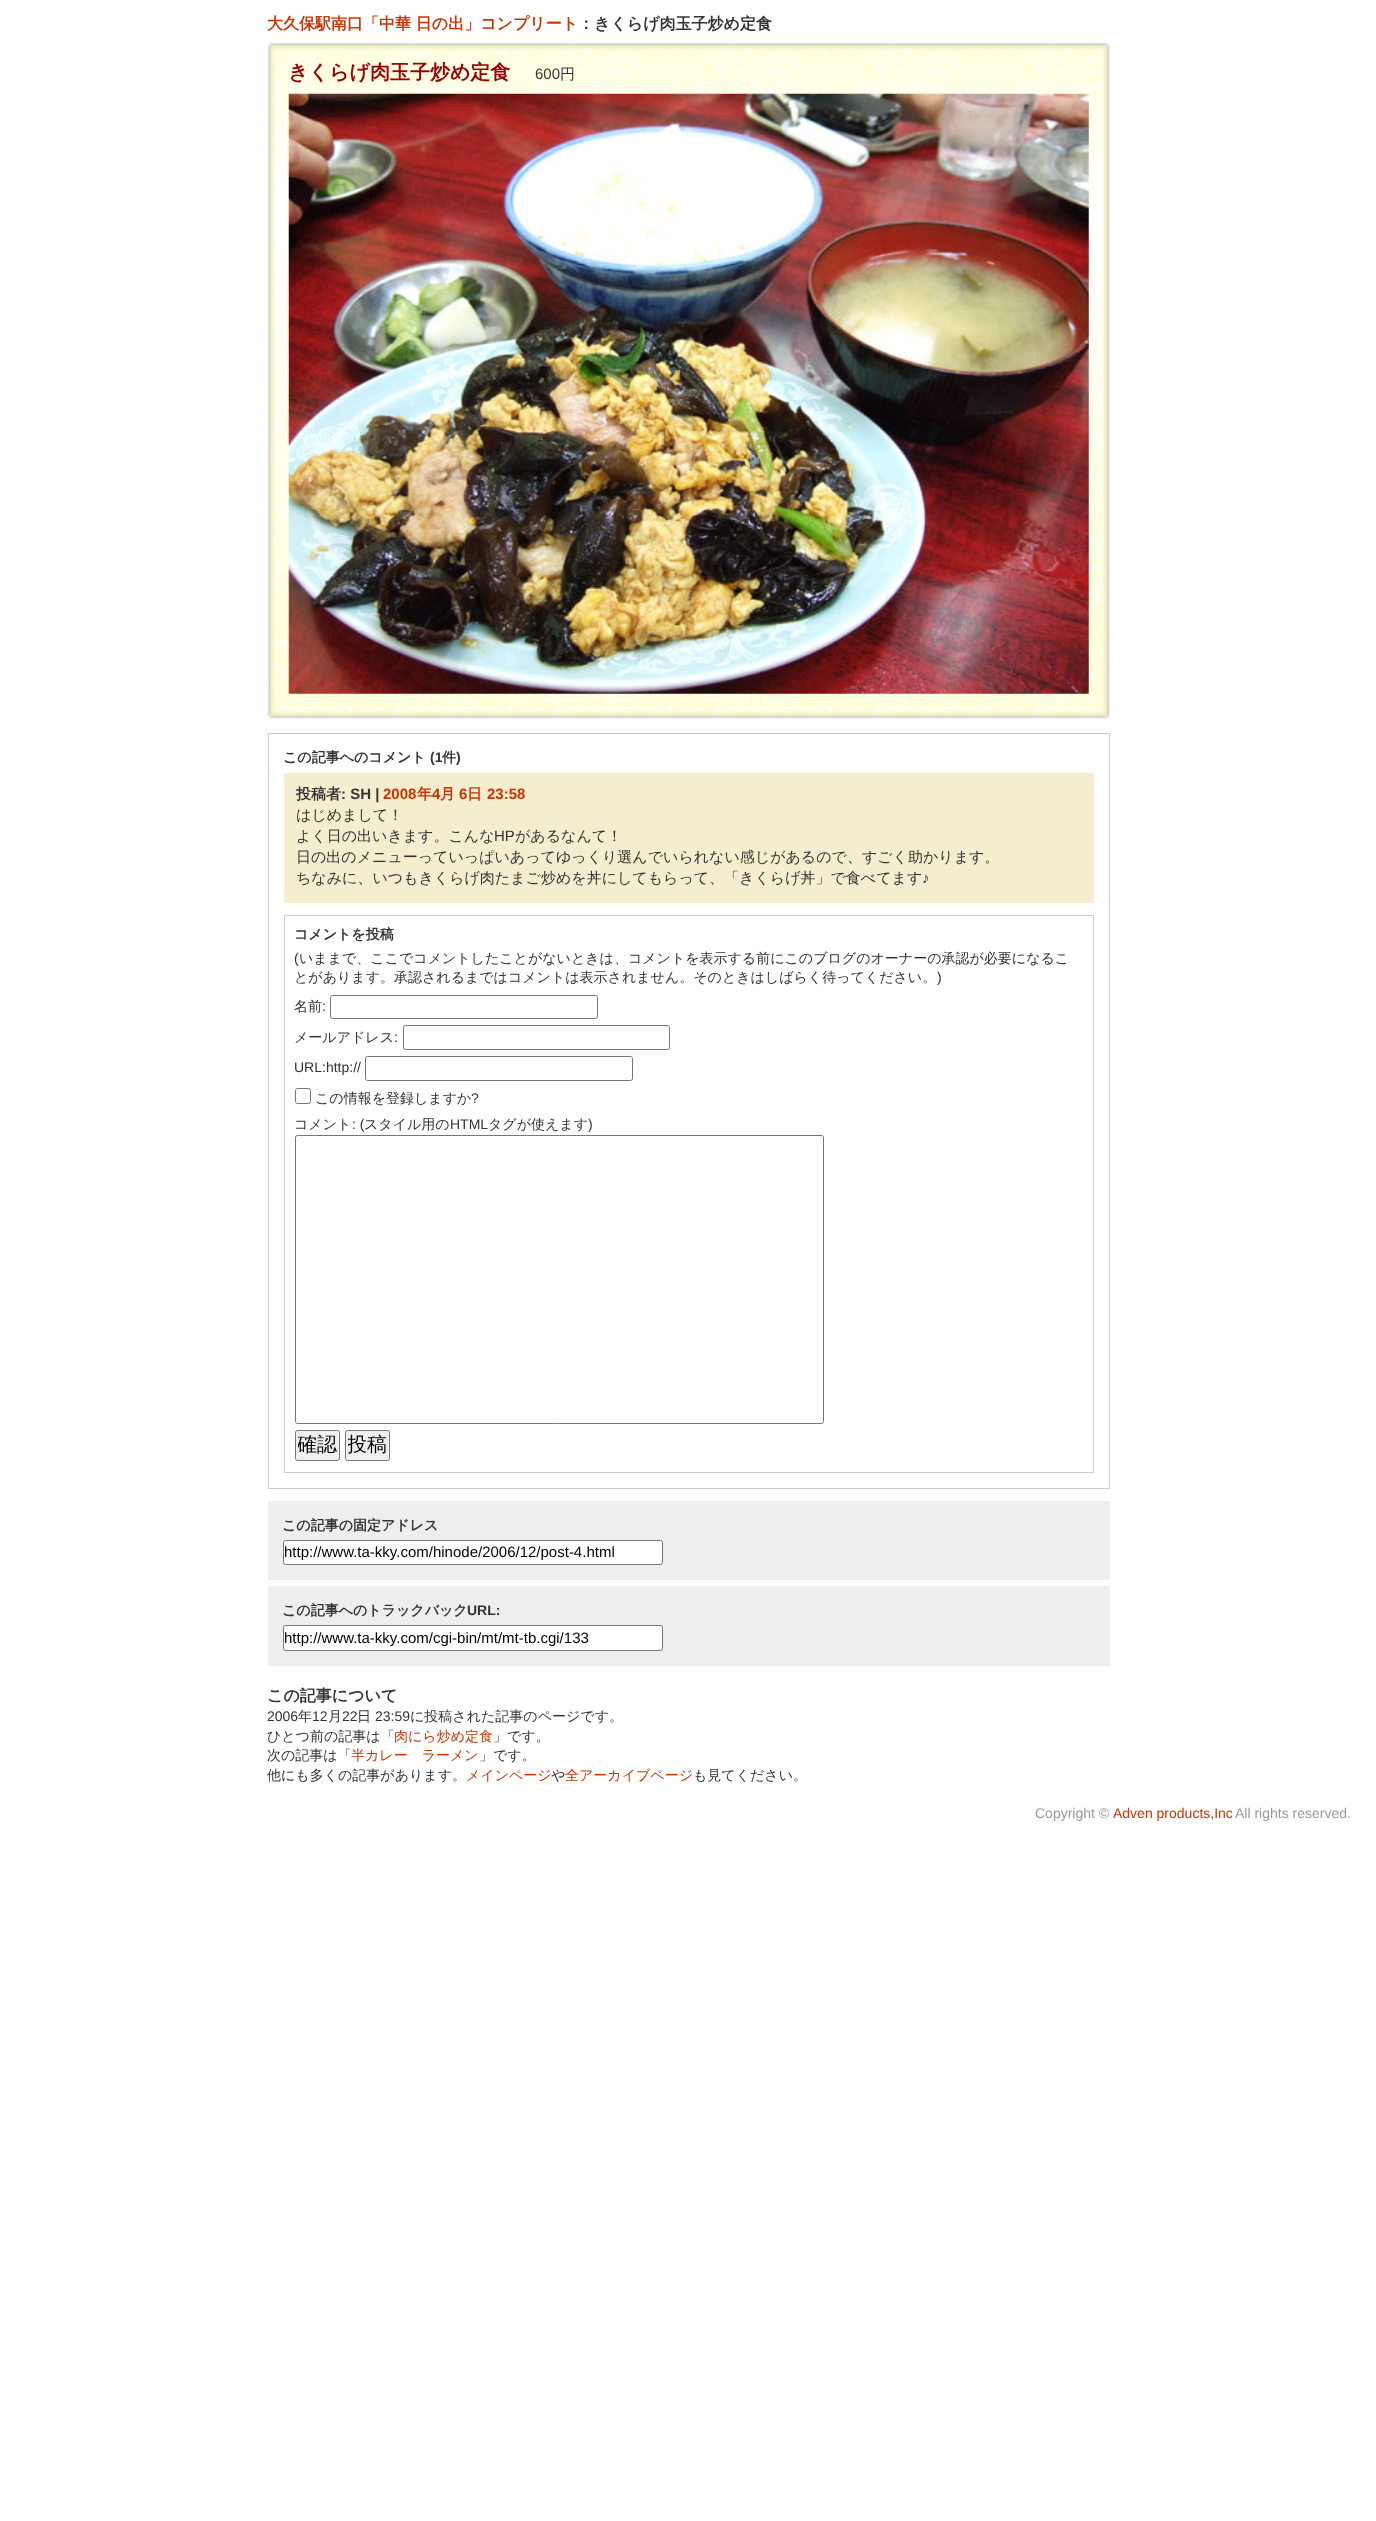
(async () => {
const canvas = document.querySelector("canvas")
canvas.width = 1376
canvas.height = 2521
const c = canvas.getContext("2d")
c.miterLimit = 4
c.fontKerning = "normal"
function T(s,x,y){c.fillText(s,x,y)}
function R(x,y,w,h){c.fillRect(x,y,w,h)}
async function I(src,x,y,w,h){const img=new Image();img.src=src;await img.decode();c.drawImage(img,x,y,w,h)}
c.fillStyle="#fff"
R(0,0,1376,2521)
c.font="bold 16px WenQuanYi Zen Hei"
c.fillStyle="#c30"
T("大久保駅南口「中華 日の出」コンプリート",267,29)
c.fillStyle="#333"
T("：きくらげ肉玉子炒め定食",578,29)
await I("1.png",267,42,843,677)
c.font="bold 20px WenQuanYi Zen Hei"
c.fillStyle="#900"
T("きくらげ肉玉子炒め定食",288,79)
c.font="15px Liberation Sans"
c.fillStyle="#333"
T("600",535,79)
c.font="500 15px WenQuanYi Zen Hei"
T("円",560,79)
await I("2.png",288,93,801,601)
c.strokeStyle="#ccc"
c.strokeRect(268.5,733.5,841,755)
c.font="bold 14px WenQuanYi Zen Hei"
T("この記事へのコメント",283,762)
c.font="bold 14px Liberation Sans"
T("(1",430,762)
c.font="bold 14px WenQuanYi Zen Hei"
T("件",442,762)
c.font="bold 14px Liberation Sans"
T(")",456,762)
c.fillStyle="#f5eece"
R(284,773,810,130)
c.font="bold 15px WenQuanYi Zen Hei"
c.fillStyle="#333"
T("投稿者",296,799)
c.font="bold 15px Liberation Sans"
T(": SH |",341,799)
c.fillStyle="#c30"
T("2008",383,799)
c.font="bold 15px WenQuanYi Zen Hei"
T("年",417,799)
c.font="bold 15px Liberation Sans"
T("4",432,799)
c.font="bold 15px WenQuanYi Zen Hei"
T("月",440,799)
c.font="bold 15px Liberation Sans"
T("6",459,799)
c.font="bold 15px WenQuanYi Zen Hei"
T("日",467,799)
c.font="bold 15px Liberation Sans"
T("23:58",487,799)
c.font="500 15px WenQuanYi Zen Hei"
c.fillStyle="#333"
T("はじめまして！",296,820)
T("よく日の出いきます。こんな",296,841)
c.font="15px Liberation Sans"
T("HP",494,841)
c.font="500 15px WenQuanYi Zen Hei"
T("があるなんて！",515,841)
T("日の出のメニューっていっぱいあってゆっくり選んでいられない感じがあるので、すごく助かります。",296,862)
T("ちなみに、いつもきくらげ肉たまご炒めを丼にしてもらって、「きくらげ丼」で食べてます",296,883)
c.font="15px Liberation Sans"
T("♪",922,883)
c.strokeRect(284.5,915.5,809,557)
c.font="bold 14px WenQuanYi Zen Hei"
T("コメントを投稿",294,939)
c.font="14px Liberation Sans"
T("(",294,963)
c.font="500 14px WenQuanYi Zen Hei"
T("いままで、ここでコメントしたことがないときは、コメントを表示する前にこのブログのオーナーの承認が必要になるこ",299,963)
T("とがあります。承認されるまではコメントは表示されません。そのときはしばらく待ってください。",294,982)
c.font="14px Liberation Sans"
T(")",937,982)
c.font="500 14px WenQuanYi Zen Hei"
T("名前",294,1011)
c.font="14px Liberation Sans"
T(":",322,1011)
c.beginPath()
c.roundRect(330.5,995.5,267,23,2)
c.strokeStyle="#767676"
c.stroke()
c.font="500 14px WenQuanYi Zen Hei"
T("メールアドレス",294,1042)
c.font="14px Liberation Sans"
T(":",394,1042)
c.beginPath()
c.roundRect(403.5,1025.5,266,24,2)
c.stroke()
T("URL:http://",294,1072)
c.beginPath()
c.roundRect(365.5,1056.5,267,24,2)
c.stroke()
c.beginPath()
c.roundRect(295.5,1088.5,15,15,2)
c.stroke()
c.font="500 14px WenQuanYi Zen Hei"
T("この情報を登録しますか",315,1103)
c.font="14px Liberation Sans"
T("?",471,1103)
c.font="500 14px WenQuanYi Zen Hei"
T("コメント",294,1129)
c.font="14px Liberation Sans"
T(": (",352,1129)
c.font="500 14px WenQuanYi Zen Hei"
T("スタイル用の",364,1129)
c.font="14px Liberation Sans"
T("HTML",450,1129)
c.font="500 14px WenQuanYi Zen Hei"
T("タグが使えます",488,1129)
c.font="14px Liberation Sans"
T(")",588,1129)
c.beginPath()
c.roundRect(295.5,1135.5,528,288,2)
c.stroke()
c.fillStyle="#efefef"
c.beginPath()
c.roundRect(295.5,1430.5,44,30,2)
c.fill()
c.stroke()
c.save()
c.beginPath()
c.rect(298,1433,40,26)
c.clip()
c.font="500 20px WenQuanYi Zen Hei"
c.fillStyle="#000"
T("確認",297,1451)
c.restore()
c.beginPath()
c.roundRect(345.5,1430.5,44,30,2)
c.fill()
c.stroke()
c.save()
c.beginPath()
c.rect(348,1433,40,26)
c.clip()
c.font="500 20px WenQuanYi Zen Hei"
c.fillStyle="#000"
T("投稿",347,1451)
c.restore()
c.fillStyle="#eee"
R(268,1501,842,79)
c.font="bold 14px WenQuanYi Zen Hei"
c.fillStyle="#333"
T("この記事の固定アドレス",282,1530)
c.fillStyle="#fff"
c.beginPath()
c.roundRect(283.5,1540.5,379,24,2)
c.fill()
c.stroke()
c.font="15px Liberation Sans"
c.fillStyle="#000"
T("http://www.ta-kky.com/hinode/2006/12/post-4.html",284,1557)
c.fillStyle="#eee"
R(268,1586,842,80)
c.font="bold 14px WenQuanYi Zen Hei"
c.fillStyle="#333"
T("この記事へのトラックバック",282,1615)
c.font="bold 14px Liberation Sans"
T("URL:",467,1615)
c.fillStyle="#fff"
c.beginPath()
c.roundRect(283.5,1625.5,379,25,2)
c.fill()
c.stroke()
c.font="15px Liberation Sans"
c.fillStyle="#000"
T("http://www.ta-kky.com/cgi-bin/mt/mt-tb.cgi/133",284,1643)
c.font="bold 16px WenQuanYi Zen Hei"
c.fillStyle="#333"
T("この記事について",267,1701)
c.font="14px Liberation Sans"
T("2006",267,1721)
c.font="500 14px WenQuanYi Zen Hei"
T("年",298,1721)
c.font="14px Liberation Sans"
T("12",312,1721)
c.font="500 14px WenQuanYi Zen Hei"
T("月",328,1721)
c.font="14px Liberation Sans"
T("22",342,1721)
c.font="500 14px WenQuanYi Zen Hei"
T("日",357,1721)
c.font="14px Liberation Sans"
T("23:59",375,1721)
c.font="500 14px WenQuanYi Zen Hei"
T("に投稿された記事のページです。",410,1721)
T("ひとつ前の記事は「",267,1741)
c.fillStyle="#c30"
T("肉にら炒め定食",394,1741)
c.fillStyle="#333"
T("」です。",493,1741)
T("次の記事は「",267,1760)
c.fillStyle="#c30"
T("半カレー　ラーメン",351,1760)
c.fillStyle="#333"
T("」です。",479,1760)
T("他にも多くの記事があります。",267,1780)
c.fillStyle="#c30"
T("メインページ",466,1780)
c.fillStyle="#333"
T("や",551,1780)
c.fillStyle="#c30"
T("全アーカイブページ",565,1780)
c.fillStyle="#333"
T("も見てください。",693,1780)
c.font="14px Liberation Sans"
c.fillStyle="#999"
T("Copyright ©",1035,1818)
c.fillStyle="#c30"
T("Adven products,Inc",1113,1818)
c.fillStyle="#999"
T("All rights reserved.",1235,1818)
})()
